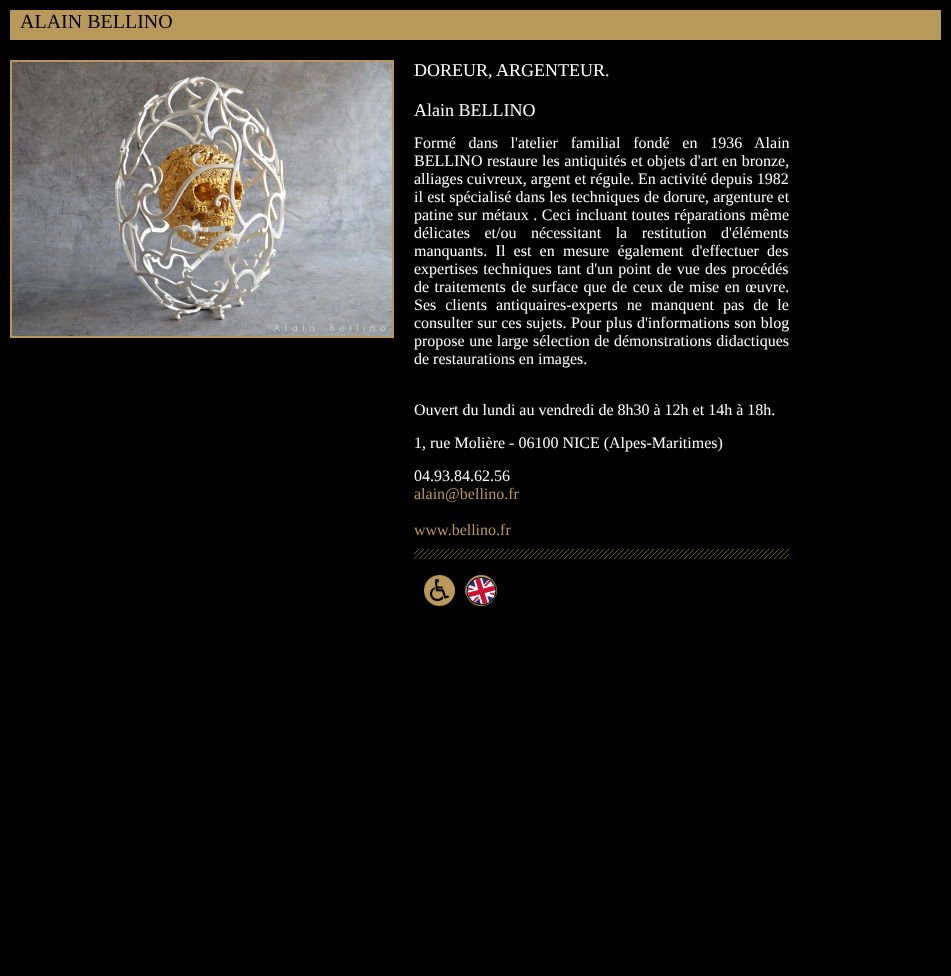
(async () => {
const canvas = document.querySelector("canvas")
canvas.width = 951
canvas.height = 976
const c = canvas.getContext("2d")
c.miterLimit = 4
c.fontKerning = "normal"
function T(s,x,y){c.fillText(s,x,y)}
function R(x,y,w,h){c.fillRect(x,y,w,h)}
async function I(src,x,y,w,h){const img=new Image();img.src=src;await img.decode();c.drawImage(img,x,y,w,h)}
c.fillStyle="#000"
R(0,0,951,976)
c.fillStyle="#b9995b"
R(10,10,931,30)
c.font="20px Liberation Serif"
c.fillStyle="#000"
T("ALAIN BELLINO",20,28)
c.strokeStyle="#b9995b"
c.lineWidth=2
c.strokeRect(11,61,382,276)
await I("1.png",12,62,380,274)
c.font="18px Liberation Serif"
c.fillStyle="#fff"
T("DOREUR, ARGENTEUR.",414,76)
T("Alain BELLINO",414,116)
c.wordSpacing="8.75px"
c.font="16px Liberation Serif"
T("Formé dans l'atelier familial fondé en 1936 Alain",414,148)
c.wordSpacing="0.5px"
T("BELLINO restaure les antiquités et objets d'art en bronze,",414,166)
c.wordSpacing="0px"
T("alliages cuivreux, argent et régule. En activité depuis 1982",414,184)
c.wordSpacing="0.25px"
T("il est spécialisé dans les techniques de dorure, argenture et",414,202)
c.wordSpacing="0.5px"
T("patine sur métaux . Ceci incluant toutes réparations même",414,220)
c.wordSpacing="10.5px"
T("délicates et/ou nécessitant la restitution d'éléments",414,238)
c.wordSpacing="4.25px"
T("manquants. Il est en mesure également d'effectuer des",414,256)
c.wordSpacing="1.25px"
T("expertises techniques tant d'un point de vue des procédés",414,274)
c.wordSpacing="1.5px"
T("de traitements de surface que de ceux de mise en œuvre.",414,292)
c.wordSpacing="5px"
T("Ses clients antiquaires-experts ne manquent pas de le",414,310)
c.wordSpacing="0.5px"
T("consulter sur ces sujets. Pour plus d'informations son blog",414,328)
T("propose une large sélection de démonstrations didactiques",414,346)
c.wordSpacing="0px"
T("de restaurations en images.",414,364)
T("Ouvert du lundi au vendredi de 8h30 à 12h et 14h à 18h.",414,415)
T("1, rue Molière - 06100 NICE (Alpes-Maritimes)",414,448)
await I("2.png",414,549,375,10)
T("04.93.84.62.56",414,481)
c.fillStyle="#b9995b"
T("alain@bellino.fr",414,499)
T("www.bellino.fr",414,535)
await I("3.png",424,575,31,31)
await I("4.png",465,575,32,31)
})()
